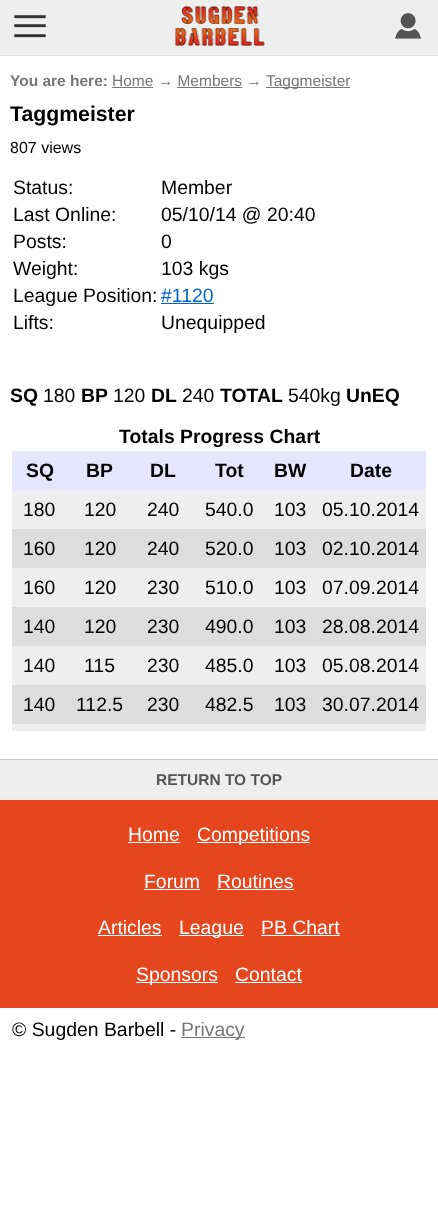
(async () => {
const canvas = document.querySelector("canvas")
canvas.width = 438
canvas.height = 1205
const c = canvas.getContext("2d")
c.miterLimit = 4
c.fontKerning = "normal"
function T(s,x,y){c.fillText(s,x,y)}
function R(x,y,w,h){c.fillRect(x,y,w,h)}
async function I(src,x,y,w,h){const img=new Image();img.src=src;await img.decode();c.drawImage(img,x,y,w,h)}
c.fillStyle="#fff"
R(0,0,438,1205)
c.fillStyle="#eee"
R(0,0,438,55)
c.fillStyle="#ddd"
R(0,55,438,1)
await I("1.png",14,15,32,23)
await I("2.png",175,6,90,40)
await I("3.png",395,13,26,26)
c.font="bold 15.5px Liberation Sans"
c.fillStyle="#777"
T("You are here:",10,86)
c.font="15.5px Liberation Sans"
T("Home → Members →",112,86)
R(112,87,41,1)
R(266,87,84,1)
T("Taggmeister",266,86)
R(177,87,65,1)
c.font="bold 21.25px Liberation Sans"
c.fillStyle="#000"
T("Taggmeister",10,121)
c.font="16px Liberation Sans"
T("807 views",10,153)
c.font="19.4px Liberation Sans"
T("Status:",13,194)
T("Member",161,194)
T("Last Online:",13,221)
T("05/10/14 @ 20:40",161,221)
T("Posts:",13,248)
T("0",161,248)
T("Weight:",13,275)
T("103 kgs",161,275)
T("League Position:",13,302)
c.fillStyle="#06c"
T("#1120",161,302)
R(161,303,53,1)
c.fillStyle="#000"
T("Lifts:",13,329)
T("Unequipped",161,329)
c.font="bold 19.4px Liberation Sans"
T("SQ",10,402)
c.font="19.4px Liberation Sans"
T("180",43,402)
c.font="bold 19.4px Liberation Sans"
T("BP",81,402)
c.font="19.4px Liberation Sans"
T("120",113,402)
c.font="bold 19.4px Liberation Sans"
T("DL",151,402)
c.font="19.4px Liberation Sans"
T("240",182,402)
c.font="bold 19.4px Liberation Sans"
T("TOTAL",220,402)
c.font="19.4px Liberation Sans"
T("540kg",288,402)
c.font="bold 19.4px Liberation Sans"
T("UnEQ",346,402)
T("Totals Progress Chart",119,443)
c.fillStyle="#e6e6ff"
R(12,451,414,39)
c.fillStyle="#000"
T("SQ",26,477)
T("BP",86,477)
T("DL",150,477)
T("Tot",215,477)
T("BW",274,477)
T("Date",350,477)
c.fillStyle="#eee"
R(12,490,414,39)
c.font="19.4px Liberation Sans"
c.fillStyle="#000"
T("180",23,516)
T("120",84,516)
T("240",147,516)
T("540.0",205,516)
T("103",274,516)
T("05.10.2014",322,516)
c.fillStyle="#ddd"
R(12,529,414,39)
c.fillStyle="#000"
T("160",23,555)
T("120",84,555)
T("240",147,555)
T("520.0",205,555)
T("103",274,555)
T("02.10.2014",322,555)
c.fillStyle="#eee"
R(12,568,414,39)
c.fillStyle="#000"
T("160",23,594)
T("120",84,594)
T("230",147,594)
T("510.0",205,594)
T("103",274,594)
T("07.09.2014",322,594)
c.fillStyle="#ddd"
R(12,607,414,39)
c.fillStyle="#000"
T("140",23,633)
T("120",84,633)
T("230",147,633)
T("490.0",205,633)
T("103",274,633)
T("28.08.2014",322,633)
c.fillStyle="#eee"
R(12,646,414,39)
c.fillStyle="#000"
T("140",23,672)
T("115",84,672)
T("230",147,672)
T("485.0",205,672)
T("103",274,672)
T("05.08.2014",322,672)
c.fillStyle="#ddd"
R(12,685,414,39)
c.fillStyle="#000"
T("140",23,711)
T("112.5",76,711)
T("230",147,711)
T("482.5",205,711)
T("103",274,711)
T("30.07.2014",322,711)
c.fillStyle="#eee"
R(12,724,414,7)
R(0,760,438,40)
c.fillStyle="#ccc"
R(0,759,438,1)
c.font="bold 15.5px Liberation Sans"
c.fillStyle="#555"
T("RETURN TO TOP",156,785)
c.fillStyle="#e5461d"
R(0,800,438,208)
c.font="19.4px Liberation Sans"
c.fillStyle="#fff"
T("Home",128,841)
R(128,842,52,1)
R(197,842,113,1)
T("Competitions",197,841)
T("Forum",144,888)
R(144,889,56,1)
T("Routines",217,888)
R(217,889,77,1)
T("Articles",98,934)
R(98,935,64,1)
R(179,935,65,1)
T("League",179,934)
T("PB Chart",261,934)
R(261,935,79,1)
R(136,982,82,1)
T("Sponsors",136,981)
T("Contact",235,981)
R(235,982,67,1)
c.fillStyle="#000"
T("© Sugden Barbell -",12,1036)
c.fillStyle="#777"
R(181,1037,64,1)
T("Privacy",181,1036)
})()
